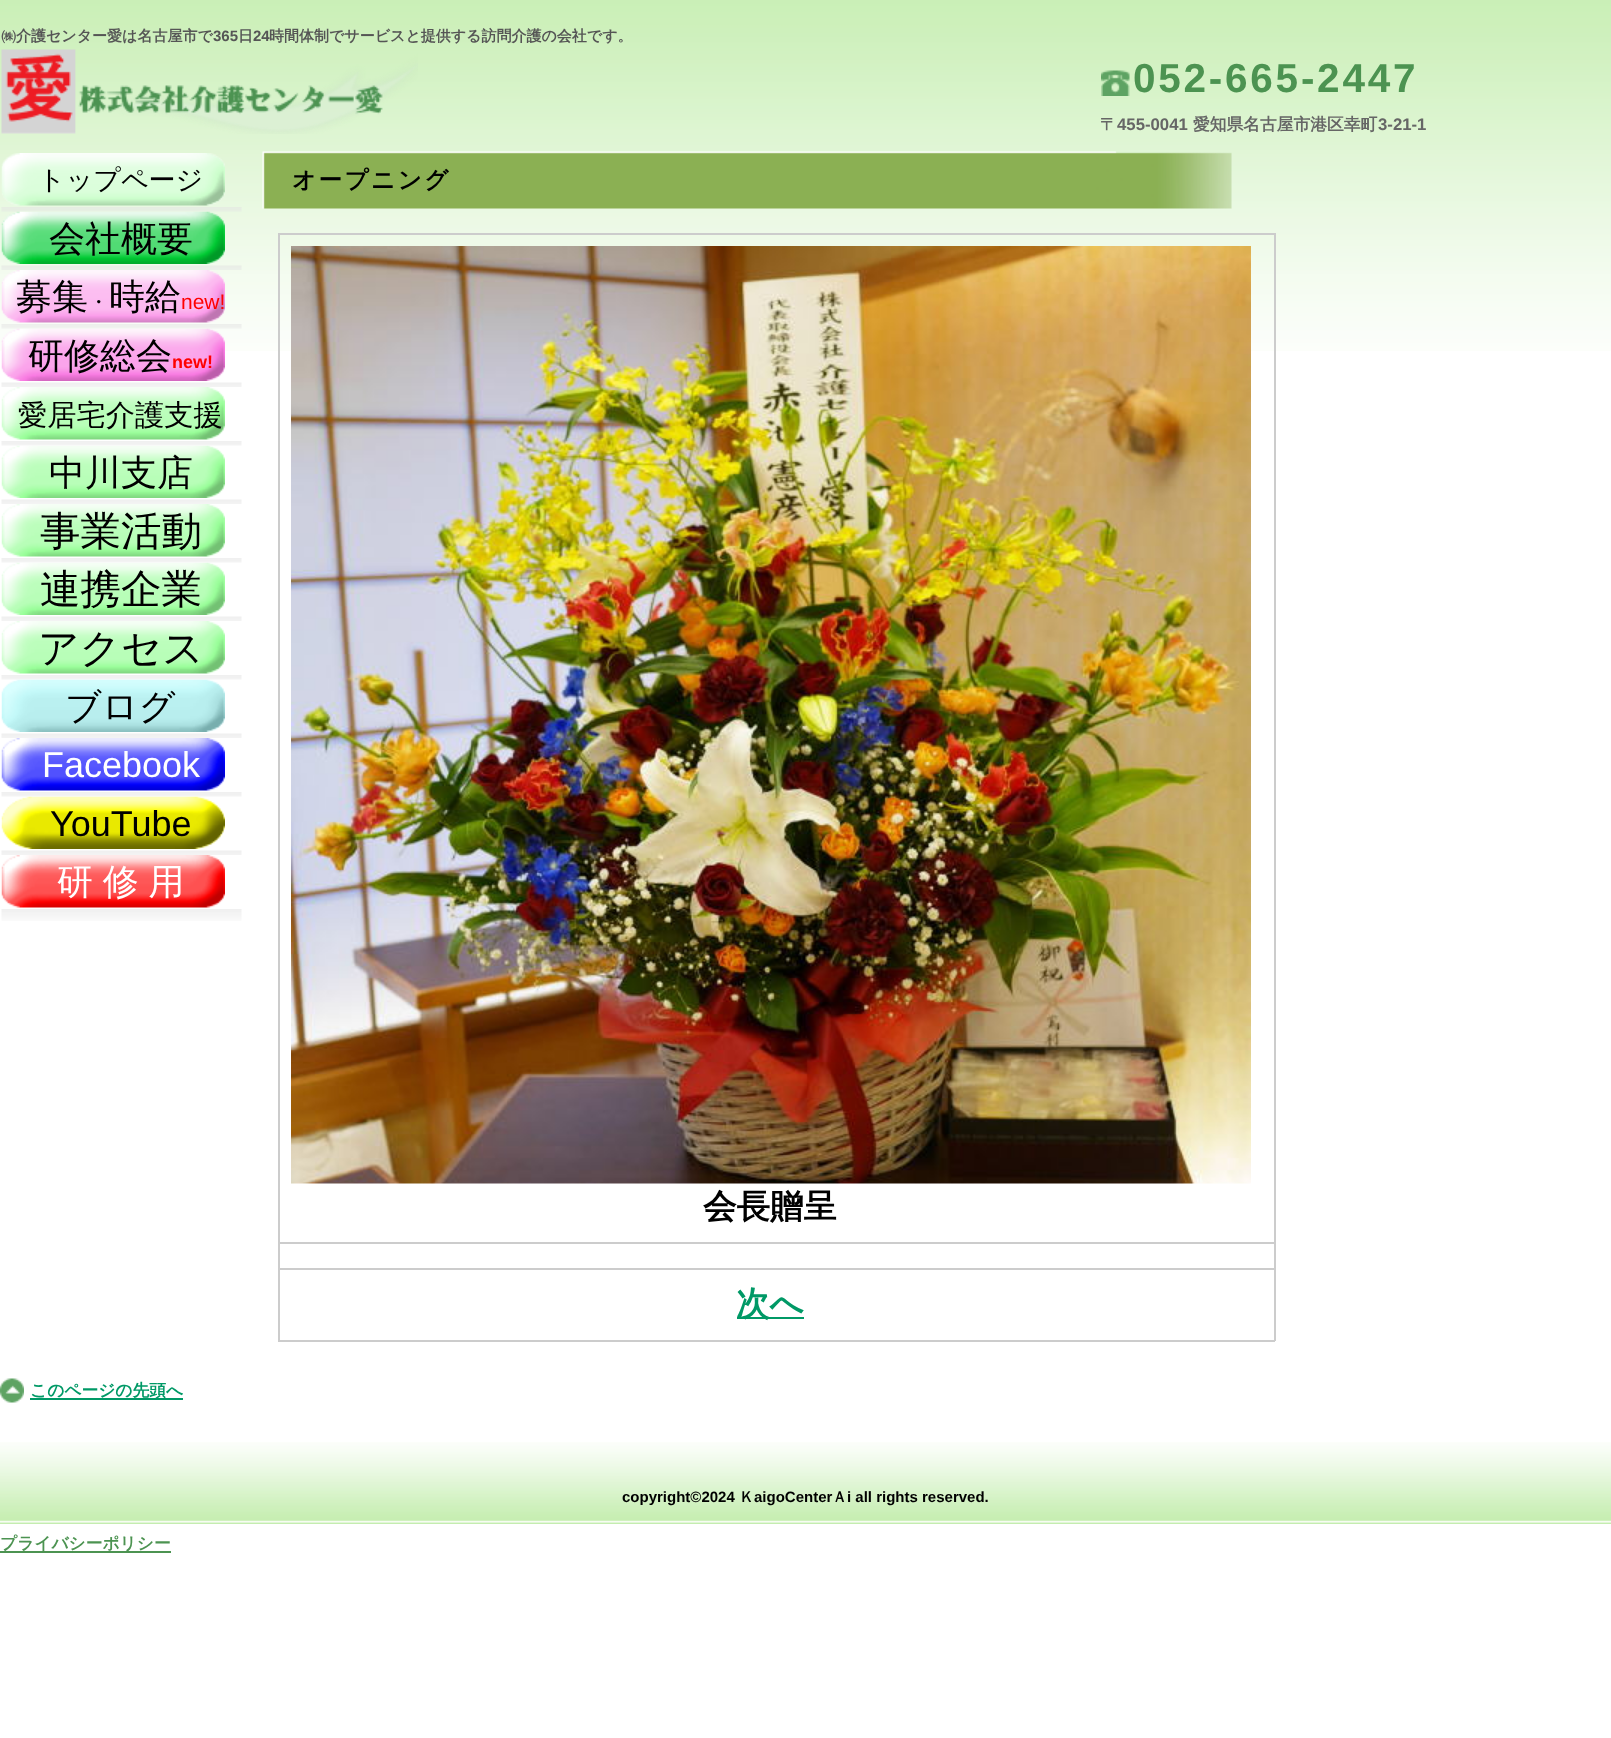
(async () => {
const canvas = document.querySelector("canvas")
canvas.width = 1611
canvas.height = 1738
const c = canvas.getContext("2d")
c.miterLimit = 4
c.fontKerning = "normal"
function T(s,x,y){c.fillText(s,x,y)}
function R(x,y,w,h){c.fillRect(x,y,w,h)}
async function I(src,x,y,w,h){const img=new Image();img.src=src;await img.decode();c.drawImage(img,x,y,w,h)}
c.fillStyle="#fff"
R(0,0,1611,1738)
await I("1.png",0,0,1611,351)
c.font="bold 15px WenQuanYi Zen Hei"
c.fillStyle="#555"
T("㈱介護センター愛は名古屋市で",1,41)
c.font="bold 15px Liberation Sans"
T("365",213,41)
c.font="bold 15px WenQuanYi Zen Hei"
T("日",238,41)
c.font="bold 15px Liberation Sans"
T("24",253,41)
c.font="bold 15px WenQuanYi Zen Hei"
T("時間体制でサービスと提供する訪問介護の会社です。",269,41)
await I("2.png",1,49,417,85)
await I("3.png",1101,70,29,26)
c.letterSpacing="2.75px"
c.font="bold 40.5px Liberation Sans"
c.fillStyle="#4c9351"
T("052-665-2447",1133,92)
c.letterSpacing="0px"
c.font="bold 16.75px WenQuanYi Zen Hei"
c.fillStyle="#666"
T("〒",1100,130)
c.font="bold 16.75px Liberation Sans"
T("455-0041",1117,130)
c.font="bold 16.75px WenQuanYi Zen Hei"
T("愛知県名古屋市港区幸町",1193,130)
c.font="bold 16.75px Liberation Sans"
T("3-21-1",1378,130)
await I("4.png",1,913,241,8)
await I("5.png",1,207,241,5)
await I("6.png",1,153,224,53)
c.font="500 27px WenQuanYi Zen Hei"
c.fillStyle="#000"
T("トップページ",38,189)
await I("7.png",1,265,241,5)
await I("8.png",1,211,224,53)
c.font="500 36px WenQuanYi Zen Hei"
T("会社概要",49,251)
await I("9.png",1,324,241,5)
await I("10.png",1,270,224,53)
T("募集",16,309)
c.font="500 21px WenQuanYi Zen Hei"
T("・",88,309)
c.font="500 36px WenQuanYi Zen Hei"
T("時給",109,309)
c.font="21px Liberation Sans"
c.fillStyle="#f00"
T("new!",181,309)
await I("11.png",1,382,241,5)
await I("12.png",1,328,224,53)
c.font="500 36px WenQuanYi Zen Hei"
c.fillStyle="#000"
T("研修総会",28,368)
c.font="bold 18px Liberation Sans"
c.fillStyle="#f00"
T("new!",172,368)
await I("13.png",1,441,241,5)
await I("14.png",1,387,224,53)
c.font="500 29.25px WenQuanYi Zen Hei"
c.fillStyle="#000"
T("愛居宅介護支援",18,425)
await I("11.png",1,499,241,5)
await I("15.png",1,445,224,53)
c.font="500 36px WenQuanYi Zen Hei"
T("中川支店",49,485)
await I("13.png",1,558,241,5)
await I("14.png",1,504,224,53)
c.font="500 40.5px WenQuanYi Zen Hei"
T("事業活動",40,545)
await I("11.png",1,616,241,5)
await I("15.png",1,562,224,53)
T("連携企業",40,603)
await I("13.png",1,675,241,5)
await I("14.png",1,621,224,53)
T("アクセス",38,662)
await I("11.png",1,733,241,5)
await I("16.png",1,679,224,53)
c.font="500 36px WenQuanYi Zen Hei"
T("ブログ",65,719)
await I("13.png",1,792,241,5)
await I("17.png",1,738,224,53)
c.font="36px Liberation Sans"
c.fillStyle="#fff"
T("Facebook",42,777)
await I("11.png",1,850,241,5)
await I("18.png",1,796,224,53)
c.fillStyle="#000"
T("YouTube",50,836)
await I("19.png",1,909,241,5)
await I("20.png",1,855,224,53)
c.wordSpacing="-1px"
c.font="500 36px WenQuanYi Zen Hei"
c.fillStyle="#fff"
T("研 修 用",57,894)
await I("21.png",262,151,970,58)
c.letterSpacing="2.5px"
c.wordSpacing="0px"
c.font="bold 23.5px WenQuanYi Zen Hei"
c.fillStyle="#000"
T("オープニング",292,188)
c.fillStyle="#ccc"
R(278,233,997,2)
R(278,233,2,1108)
R(1274,233,2,1108)
R(278,1242,997,2)
await I("22.png",291,246,960,938)
c.letterSpacing="0px"
c.font="bold 33.5px WenQuanYi Zen Hei"
c.fillStyle="#000"
T("会長贈呈",703,1218)
c.fillStyle="#ccc"
R(278,1268,997,2)
R(278,1340,997,2)
c.fillStyle="#096"
R(737,1317,67,2)
T("次へ",736,1315)
await I("23.png",0,1378,24,25)
R(30,1398,153,2)
c.font="bold 16.75px WenQuanYi Zen Hei"
T("このページの先頭へ",30,1396)
await I("24.png",0,1442,1611,82)
c.font="bold 15px Liberation Sans"
c.fillStyle="#000"
T("copyright©2024",622,1502)
c.font="bold 15px WenQuanYi Zen Hei"
T("Ｋ",739,1502)
c.font="bold 15px Liberation Sans"
T("aigoCenter",754,1502)
c.font="bold 15px WenQuanYi Zen Hei"
T("Ａ",832,1502)
c.font="bold 15px Liberation Sans"
T("i all rights reserved.",847,1502)
c.fillStyle="#4c9351"
R(0,1551,171,2)
c.font="bold 16.75px WenQuanYi Zen Hei"
T("プライバシーポリシー",0,1549)
})()
